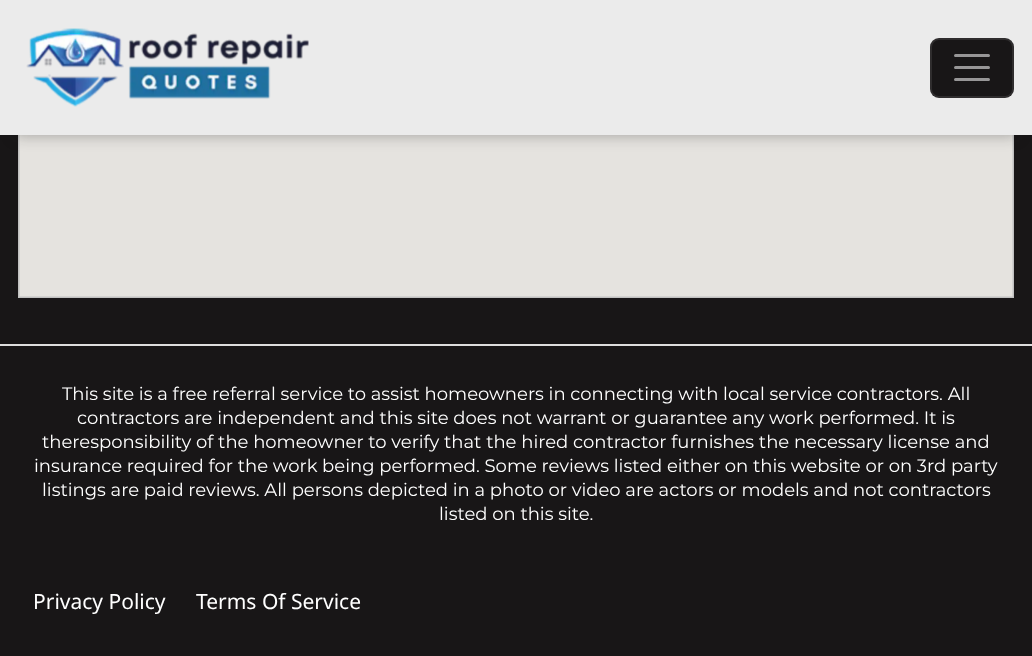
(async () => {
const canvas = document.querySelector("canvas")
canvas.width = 1032
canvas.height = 656
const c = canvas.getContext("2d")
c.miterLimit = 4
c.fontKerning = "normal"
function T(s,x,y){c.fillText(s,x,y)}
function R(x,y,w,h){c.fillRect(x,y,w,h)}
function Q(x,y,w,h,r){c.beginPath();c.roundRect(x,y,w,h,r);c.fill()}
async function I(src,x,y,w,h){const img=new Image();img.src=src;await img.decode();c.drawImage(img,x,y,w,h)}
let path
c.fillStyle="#181617"
R(0,0,1032,656)
await I("2.png",18,135,996,163)
c.fillStyle="#11111154"
c.filter="blur(7.5px)"
c.beginPath()
c.rect(15,30,1002,105)
c.fill()
c.filter="none"
c.fillStyle="#ebebeb"
R(0,0,1032,135)
await I("1.png",26,28,283,79)
c.fillStyle="#181617"
Q(930,38,84,60,9)
c.beginPath()
c.roundRect(931,39,82,58,8)
c.strokeStyle="#ffffff1a"
c.lineWidth=2
c.stroke()
path = new Path2D("M955.5 55.5h33m-33 12h33m-33 12h33")
c.strokeStyle="#979697"
c.lineWidth=3
c.lineCap="round"
c.stroke(path)
c.fillStyle="#ddd"
R(0,344,1032,2)
c.font="18px Montserrat"
c.fillStyle="#fff"
T("This site is a free referral service to assist homeowners in connecting with local service contractors. All",62,400)
T("contractors are independent and this site does not warrant or guarantee any work performed. It is",77,424)
T("theresponsibility of the homeowner to verify that the hired contractor furnishes the necessary license and",42,448)
T("insurance required for the work being performed. Some reviews listed either on this website or on 3rd party",34,472)
T("listings are paid reviews. All persons depicted in a photo or video are actors or models and not contractors",42,496)
T("listed on this site.",439,520)
c.font="21px Noto Sans"
T("Privacy Policy",33,609)
T("Terms Of Service",196,609)
})()
